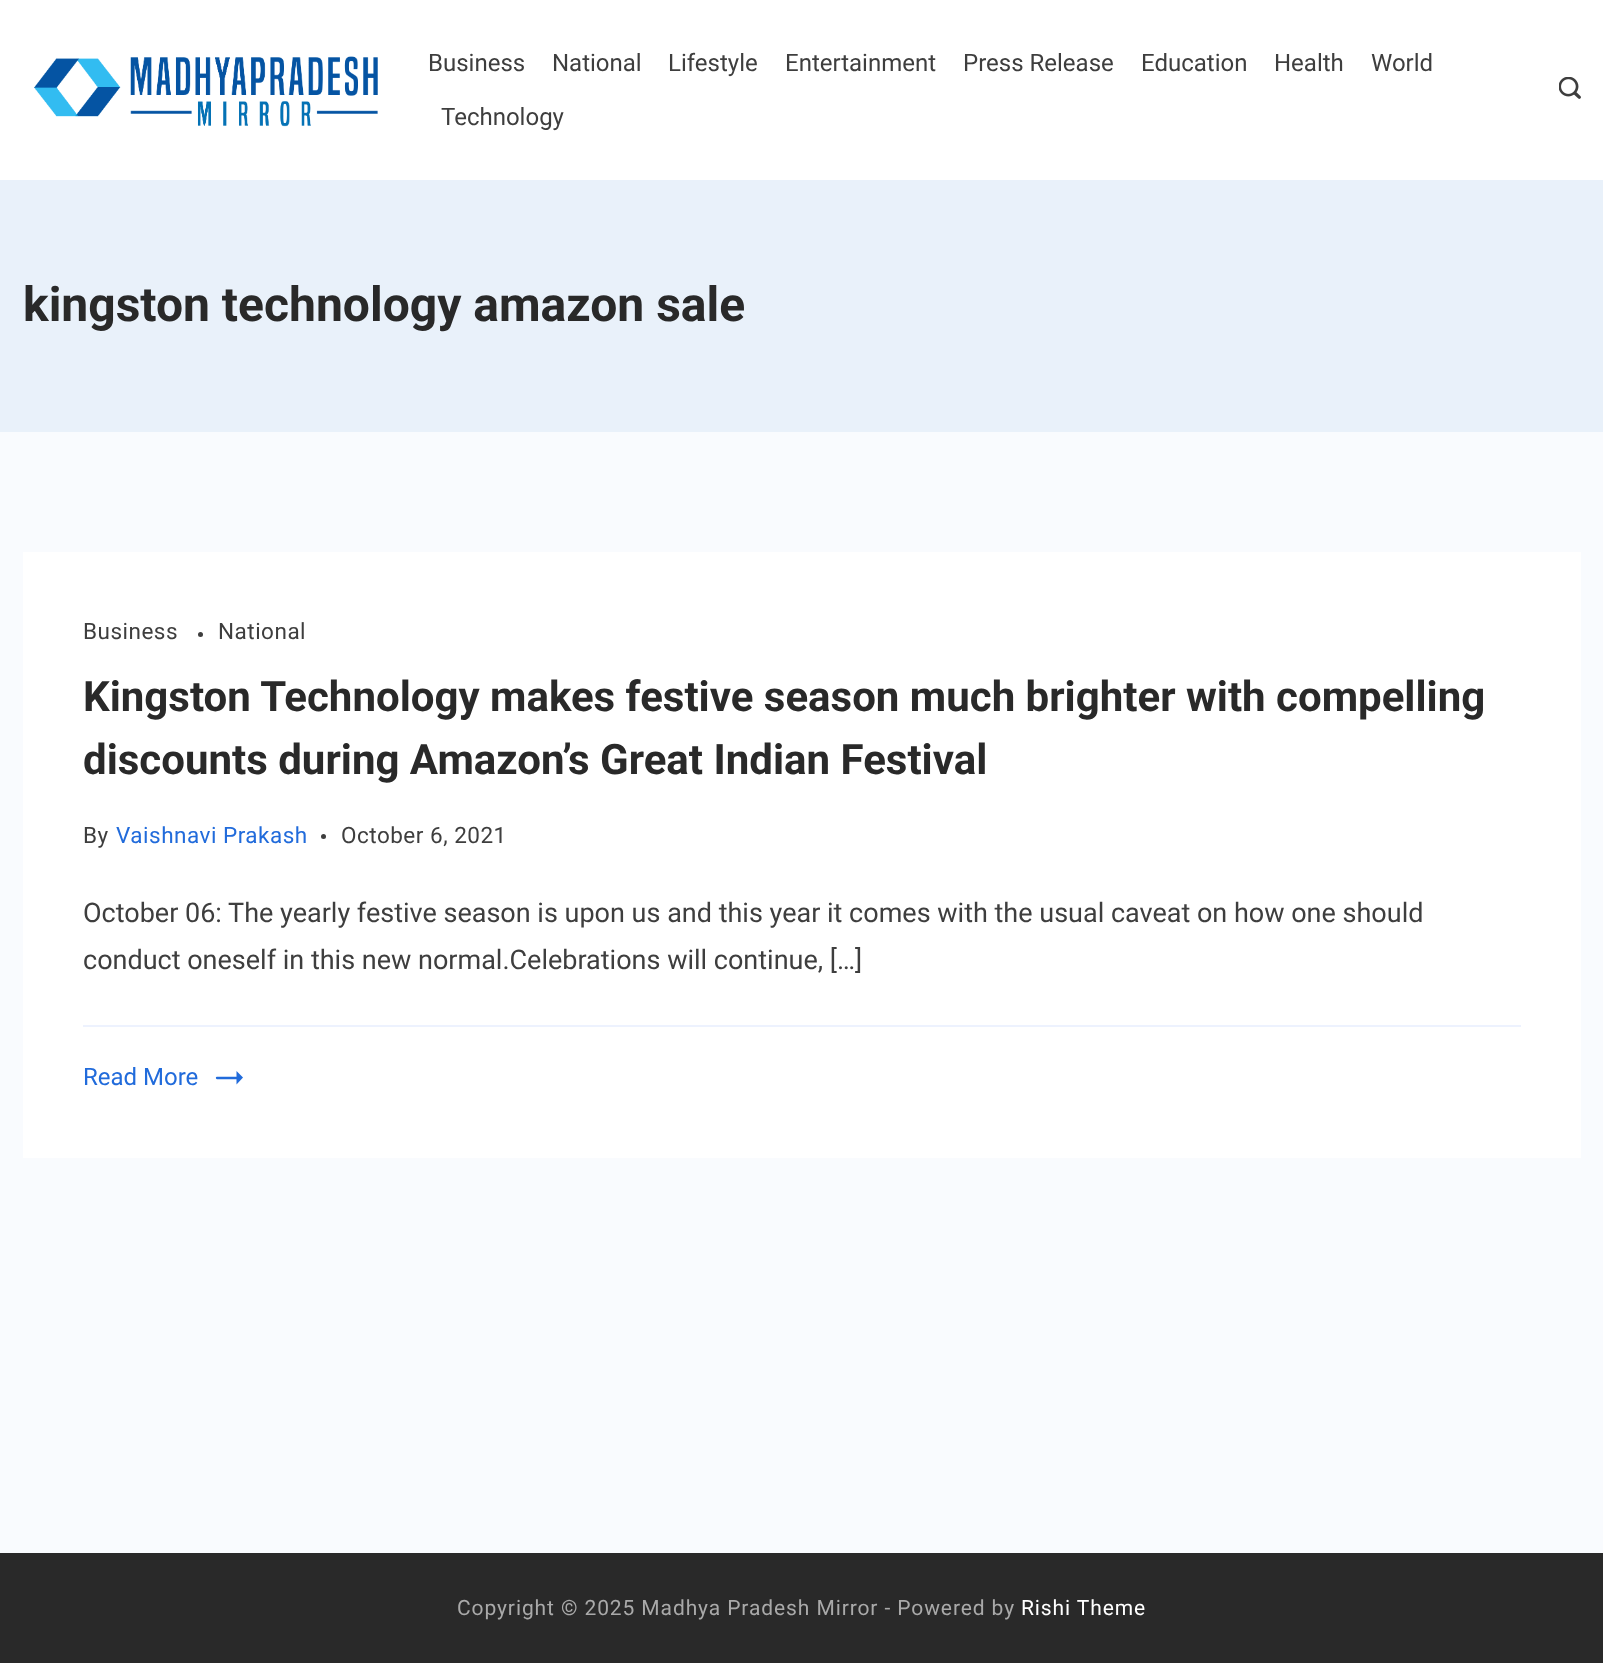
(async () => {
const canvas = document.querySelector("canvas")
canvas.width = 1603
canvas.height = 1663
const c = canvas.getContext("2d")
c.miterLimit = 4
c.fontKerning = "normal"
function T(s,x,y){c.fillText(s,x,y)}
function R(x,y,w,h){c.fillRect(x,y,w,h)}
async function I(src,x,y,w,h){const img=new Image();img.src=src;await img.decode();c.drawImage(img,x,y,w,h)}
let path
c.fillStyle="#f9fbfe"
R(0,0,1603,1663)
c.fillStyle="#fff"
R(0,0,1603,180)
await I("1.png",34,56,344,71)
c.font="24px Roboto"
c.fillStyle="#3e3e3e"
T("Business",428,71)
T("National",552,71)
T("Lifestyle",668,71)
T("Entertainment",785,71)
T("Press Release",963,71)
T("Education",1141,71)
T("Health",1274,71)
T("World",1371,71)
T("Technology",441,125)
await I("2.png",1559,77,22,22)
c.fillStyle="#e9f1fa"
R(0,180,1603,252)
c.font="bold 48px Roboto"
c.fillStyle="#292929"
T("kingston technology amazon sale",23,321)
c.fillStyle="#fff"
R(23,552,1558,606)
c.letterSpacing="0.5px"
c.font="22.5px Roboto"
c.fillStyle="#3e3e3e"
T("Business",83,639)
c.beginPath()
c.arc(200.5,634.5,2.5,0,7)
c.fill()
T("National",218,639)
c.letterSpacing="0px"
c.font="bold 42px Roboto"
c.fillStyle="#292929"
T("Kingston Technology makes festive season much brighter with compelling",83,711)
T("discounts during Amazon’s Great Indian Festival",83,774)
c.letterSpacing="0.5px"
c.font="22.5px Roboto"
c.fillStyle="#3e3e3e"
T("By",83,843)
c.fillStyle="#216bdb"
T("Vaishnavi Prakash",116,843)
c.fillStyle="#3e3e3e"
c.beginPath()
c.arc(323.5,836.5,2.5,0,7)
c.fill()
T("October 6, 2021",341,843)
c.letterSpacing="0px"
c.font="27px Roboto"
T("October 06: The yearly festive season is upon us and this year it comes with the usual caveat on how one should",83,922)
T("conduct oneself in this new normal.Celebrations will continue, […]",83,969)
c.fillStyle="#edf2fe"
R(83,1025,1438,2)
c.font="24px Roboto"
c.fillStyle="#216bdb"
T("Read More",83,1085)
path = new Path2D("M236.5 1084.5l6.5-7l-6.5-6.5z")
c.fill(path)
path = new Path2D("M217 1078h22")
c.strokeStyle="#216bdb"
c.lineWidth=2.3
c.lineCap="round"
c.stroke(path)
c.fillStyle="#292929"
R(0,1553,1603,110)
c.letterSpacing="0.9px"
c.font="21px Roboto"
c.fillStyle="#a9a9a9"
T("Copyright © 2025 Madhya Pradesh Mirror - Powered by",457,1615)
c.fillStyle="#fff"
T("Rishi Theme",1021,1615)
})()
